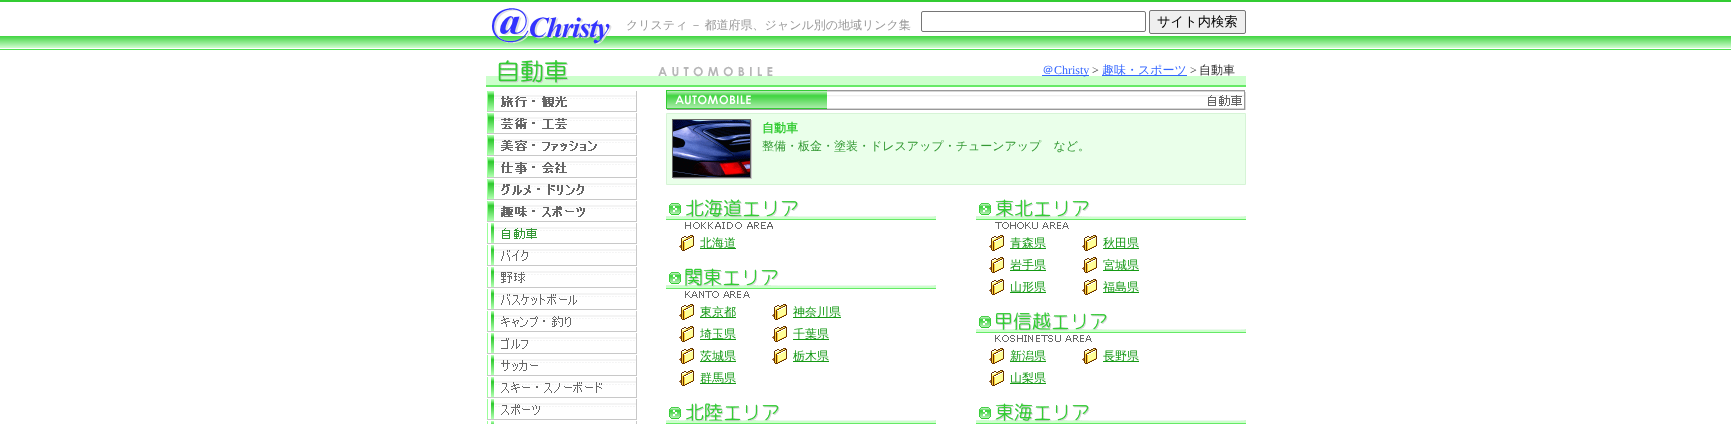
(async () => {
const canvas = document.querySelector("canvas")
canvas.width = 1731
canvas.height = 424
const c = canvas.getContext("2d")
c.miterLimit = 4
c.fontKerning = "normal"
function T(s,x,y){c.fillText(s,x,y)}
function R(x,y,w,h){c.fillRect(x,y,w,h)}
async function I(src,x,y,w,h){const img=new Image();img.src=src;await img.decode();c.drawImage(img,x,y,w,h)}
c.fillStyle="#fff"
R(0,0,1731,424)
await I("1.png",0,0,1731,50)
await I("2.png",491,8,121,37)
c.wordSpacing="-1px"
c.font="500 12px WenQuanYi Zen Hei"
c.fillStyle="#999"
T("クリスティ － 都道府県、ジャンル別の地域リンク集",626,29)
c.beginPath()
c.roundRect(921.5,11.5,224,20,1.5)
c.strokeStyle="#767676"
c.stroke()
c.fillStyle="#efefef"
c.beginPath()
c.roundRect(1149.5,10.5,96,23,1.5)
c.fill()
c.stroke()
c.wordSpacing="0px"
c.font="500 13.25px WenQuanYi Zen Hei"
c.fillStyle="#000"
T("サイト内検索",1157,26)
await I("3.png",486,76,760,11)
await I("4.png",498,60,275,24)
c.font="500 12px WenQuanYi Zen Hei"
c.fillStyle="#36f"
T("＠",1042,74)
R(1042,75,47,1)
c.font="12px Liberation Serif"
T("Christy",1054,74)
c.fillStyle="#333"
T(">",1092,74)
c.fillStyle="#36f"
R(1102,75,85,1)
c.font="500 12px WenQuanYi Zen Hei"
T("趣味・スポーツ",1102,74)
c.font="12px Liberation Serif"
c.fillStyle="#333"
T(">",1190,74)
c.font="500 12px WenQuanYi Zen Hei"
T("自動車",1199,74)
await I("5.png",487,91,149,20)
c.fillStyle="#c8c8c8"
R(636,91,1,20)
R(487,111,150,1)
await I("6.png",487,113,149,20)
R(636,113,1,20)
R(487,133,150,1)
await I("7.png",666,90,580,20)
c.fillStyle="#eaffea"
c.beginPath()
c.rect(666.5,113.5,579,71)
c.fill()
c.strokeStyle="#d6f4d6"
c.stroke()
await I("8.png",672,119,80,60)
c.font="bold 12px WenQuanYi Zen Hei"
c.fillStyle="#3c3"
T("自動車",762,132)
c.font="500 12px WenQuanYi Zen Hei"
c.fillStyle="#393"
T("整備・板金・塗装・ドレスアップ・チューンアップ　など。",762,150)
await I("9.png",666,199,270,30)
await I("10.png",679,235,15,16)
c.fillStyle="#149914"
R(700,248,36,1)
T("北海道",700,247)
await I("11.png",666,268,270,30)
await I("10.png",679,304,15,16)
R(700,317,36,1)
T("東京都",700,316)
await I("10.png",772,304,15,16)
R(793,317,48,1)
T("神奈川県",793,316)
await I("10.png",679,326,15,16)
R(700,339,36,1)
T("埼玉県",700,338)
await I("10.png",772,326,15,16)
R(793,339,36,1)
T("千葉県",793,338)
await I("10.png",679,348,15,16)
R(700,361,36,1)
T("茨城県",700,360)
await I("10.png",772,348,15,16)
R(793,361,36,1)
T("栃木県",793,360)
await I("10.png",679,370,15,16)
R(700,383,36,1)
T("群馬県",700,382)
await I("12.png",666,403,270,21)
await I("13.png",976,199,270,30)
await I("10.png",989,235,15,16)
R(1010,248,36,1)
T("青森県",1010,247)
await I("10.png",1082,235,15,16)
R(1103,248,36,1)
T("秋田県",1103,247)
await I("10.png",989,257,15,16)
R(1010,270,36,1)
T("岩手県",1010,269)
await I("10.png",1082,257,15,16)
R(1103,270,36,1)
T("宮城県",1103,269)
await I("10.png",989,279,15,16)
R(1010,292,36,1)
T("山形県",1010,291)
await I("10.png",1082,279,15,16)
R(1103,292,36,1)
T("福島県",1103,291)
await I("14.png",976,312,270,30)
await I("10.png",989,348,15,16)
R(1010,361,36,1)
T("新潟県",1010,360)
await I("10.png",1082,348,15,16)
R(1103,361,36,1)
T("長野県",1103,360)
await I("10.png",989,370,15,16)
R(1010,383,36,1)
T("山梨県",1010,382)
await I("15.png",976,403,270,21)
await I("16.png",487,135,149,20)
c.fillStyle="#c8c8c8"
R(636,135,1,20)
R(487,155,150,1)
await I("17.png",487,157,149,20)
R(636,157,1,20)
R(487,177,150,1)
await I("18.png",487,179,149,20)
R(636,179,1,20)
R(487,199,150,1)
await I("19.png",487,201,149,20)
R(636,201,1,20)
R(487,221,150,1)
await I("20.png",487,223,149,20)
R(636,223,1,20)
R(487,243,150,1)
await I("21.png",487,245,149,20)
R(636,245,1,20)
R(487,265,150,1)
await I("22.png",487,267,149,20)
R(636,267,1,20)
R(487,287,150,1)
await I("23.png",487,289,149,20)
R(636,289,1,20)
R(487,309,150,1)
await I("24.png",487,311,149,20)
R(636,311,1,20)
R(487,331,150,1)
await I("25.png",487,333,149,20)
R(636,333,1,20)
R(487,353,150,1)
await I("26.png",487,355,149,20)
R(636,355,1,20)
R(487,375,150,1)
await I("27.png",487,377,149,20)
R(636,377,1,20)
R(487,397,150,1)
await I("28.png",487,399,149,20)
R(636,399,1,20)
R(487,419,150,1)
await I("29.png",487,421,149,3)
R(636,421,1,3)
})()
